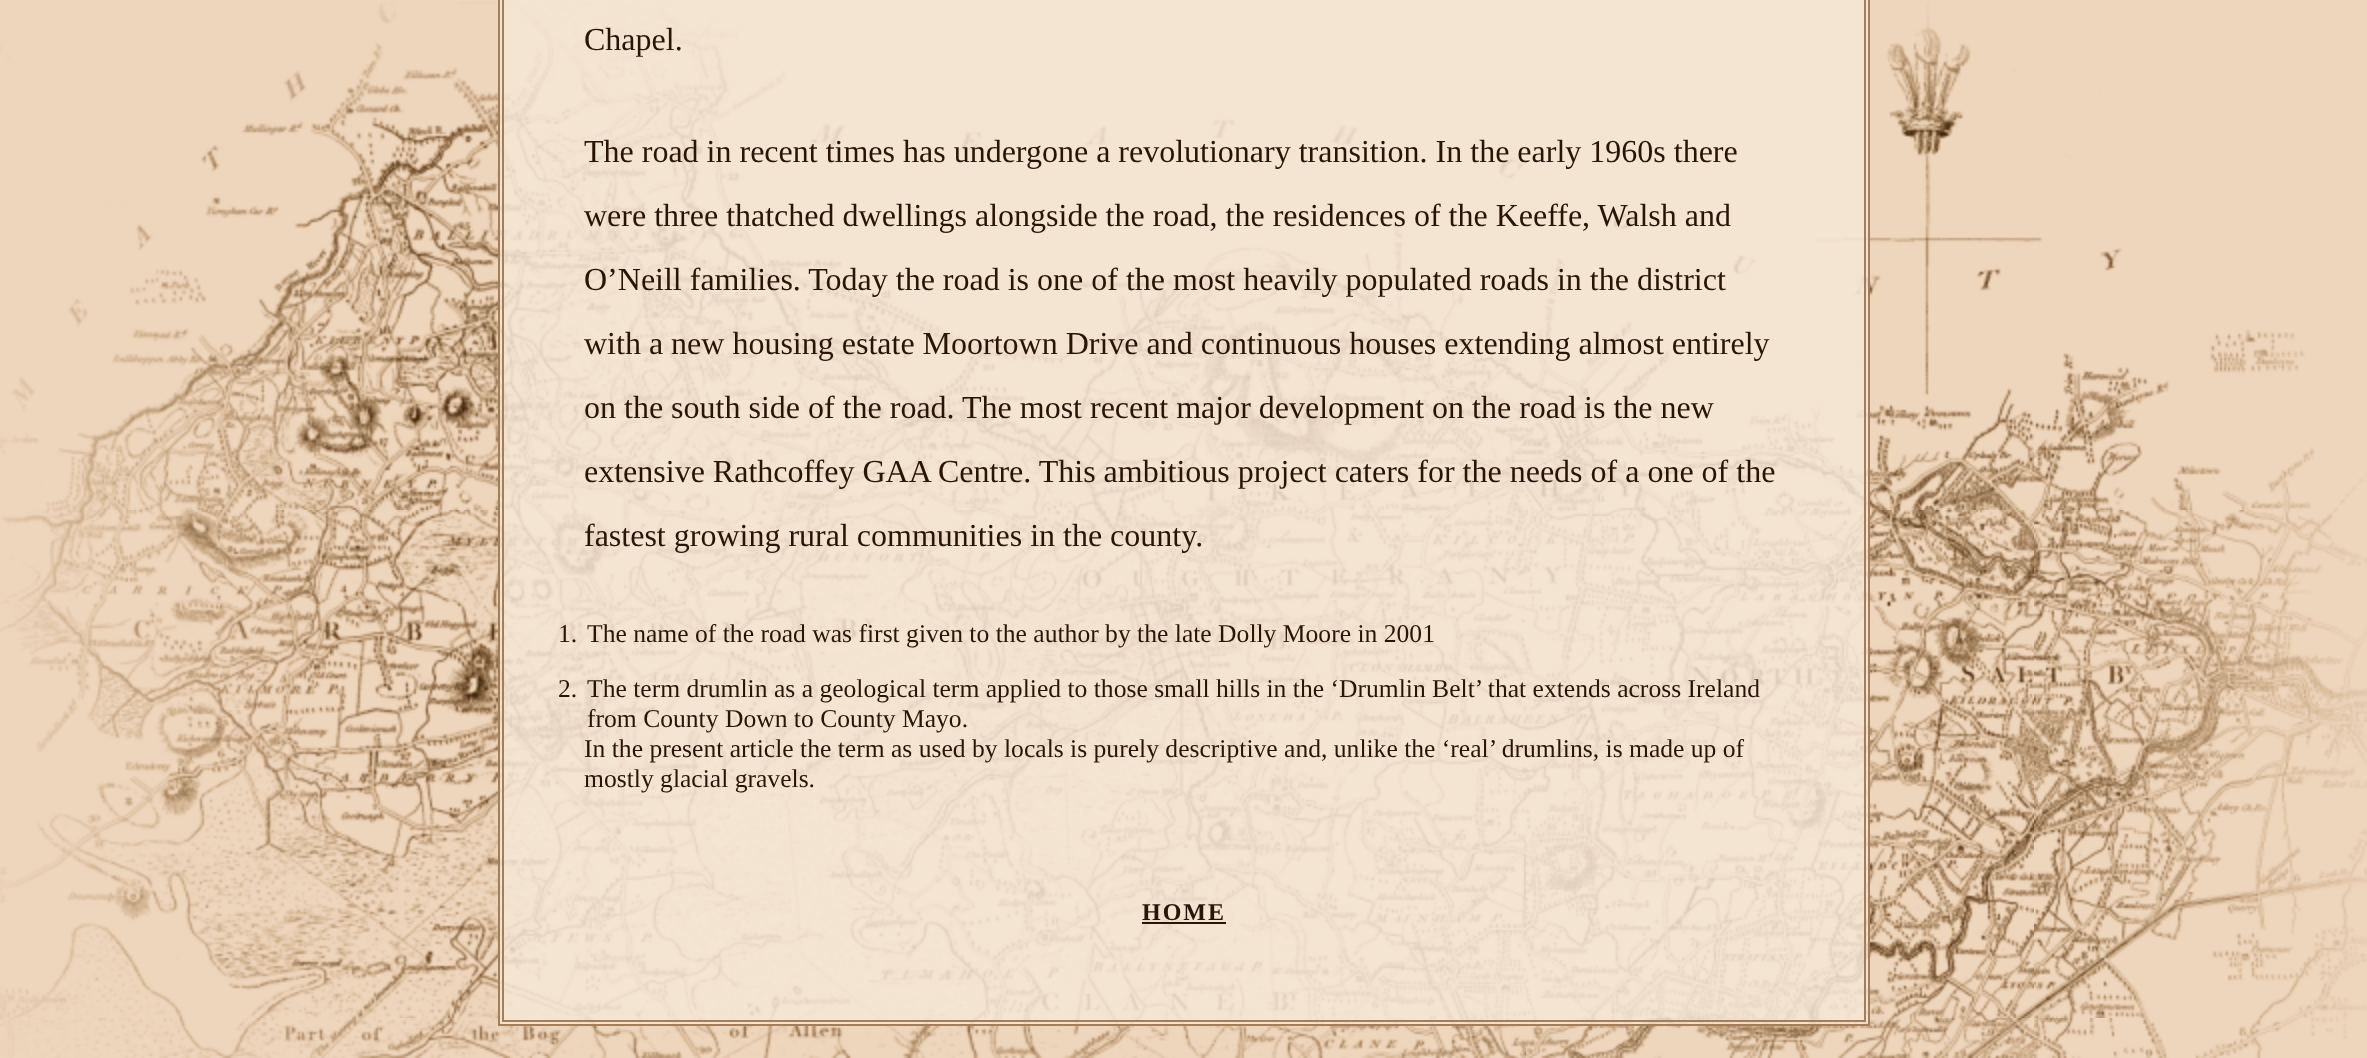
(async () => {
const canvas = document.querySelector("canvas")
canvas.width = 2367
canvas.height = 1058
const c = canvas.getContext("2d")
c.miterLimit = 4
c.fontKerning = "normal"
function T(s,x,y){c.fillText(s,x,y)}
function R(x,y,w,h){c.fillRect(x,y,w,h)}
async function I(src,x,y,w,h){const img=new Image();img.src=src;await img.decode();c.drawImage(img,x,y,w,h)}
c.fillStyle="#eed6bc"
R(0,0,2367,1058)
await I("1.png",0,2,2367,1056)
c.fillStyle="#f5e6d6d9"
c.beginPath()
c.rect(499,-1,1370,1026)
c.fill()
c.strokeStyle="#a47d59"
c.lineWidth=2
c.stroke()
c.strokeRect(503,-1,1362,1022)
c.font="32px Liberation Serif"
c.fillStyle="#291503"
T("Chapel.",584,50)
T("The road in recent times has undergone a revolutionary transition. In the early 1960s there",584,162)
T("were three thatched dwellings alongside the road, the residences of the Keeffe, Walsh and",584,226)
T("O’Neill families. Today the road is one of the most heavily populated roads in the district",584,290)
T("with a new housing estate Moortown Drive and continuous houses extending almost entirely",584,354)
T("on the south side of the road. The most recent major development on the road is the new",584,418)
T("extensive Rathcoffey GAA Centre. This ambitious project caters for the needs of a one of the",584,482)
T("fastest growing rural communities in the county.",584,546)
c.font="25.6px Liberation Serif"
T("1.",558,642)
T("The name of the road was first given to the author by the late Dolly Moore in 2001",587,642)
T("2.",558,697)
T("The term drumlin as a geological term applied to those small hills in the ‘Drumlin Belt’ that extends across Ireland",587,697)
T("from County Down to County Mayo.",587,727)
T("In the present article the term as used by locals is purely descriptive and, unlike the ‘real’ drumlins, is made up of",584,757)
T("mostly glacial gravels.",584,787)
c.letterSpacing="2px"
c.font="bold 24px Liberation Serif"
T("HOME",1142,920)
R(1142,922,84,2)
})()
